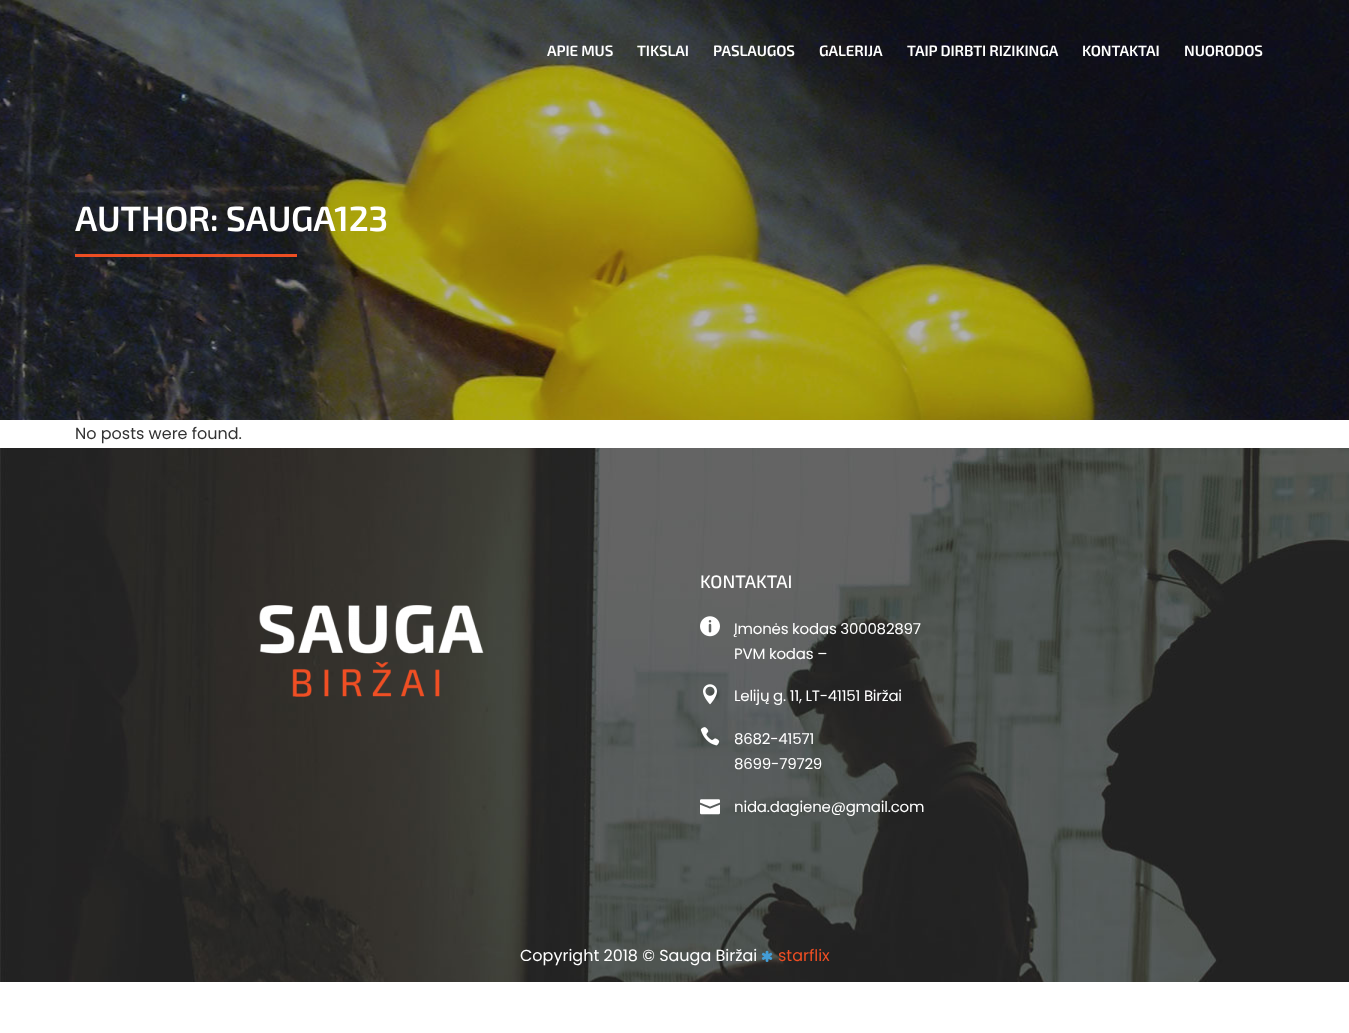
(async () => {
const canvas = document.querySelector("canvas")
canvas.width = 1349
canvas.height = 1033
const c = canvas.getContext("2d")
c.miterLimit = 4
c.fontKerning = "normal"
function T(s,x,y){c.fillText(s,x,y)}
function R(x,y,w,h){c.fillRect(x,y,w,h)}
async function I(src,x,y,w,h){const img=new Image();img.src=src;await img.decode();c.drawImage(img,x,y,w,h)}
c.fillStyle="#fff"
R(0,0,1349,1033)
await I("1.png",0,0,1349,420)
c.letterSpacing="-0.1px"
c.font="600 15px 'Exo 2'"
T("APIE MUS",547,56)
T("TIKSLAI",637,56)
T("PASLAUGOS",713,56)
T("GALERIJA",819,56)
T("TAIP DIRBTI RIZIKINGA",907,56)
T("KONTAKTAI",1082,56)
T("NUORODOS",1184,56)
c.letterSpacing="-0.25px"
c.font="600 35px 'Exo 2'"
T("AUTHOR: SAUGA123",75,231)
c.fillStyle="#ed4e23"
R(75,254,222,3)
c.letterSpacing="0px"
c.font="16px Poppins"
c.fillStyle="#333"
T("No posts were found.",75,439)
await I("2.png",0,448,1349,534)
await I("3.png",259,605,225,92)
c.font="500 18px 'Exo 2'"
c.fillStyle="#fff"
T("KONTAKTAI",700,588)
await I("4.png",700,616,20,21)
c.letterSpacing="-0.2px"
c.font="15px Poppins"
T("Įmonės kodas 300082897",734,634)
T("PVM kodas –",734,659)
await I("5.png",703,684,14,21)
T("Lelijų g. 11, LT-41151 Biržai",734,701)
await I("6.png",700,727,20,19)
T("8682-41571",734,744)
T("8699-79729",734,769)
await I("7.png",700,799,20,16)
T("nida.dagiene@gmail.com",734,812)
c.letterSpacing="0px"
c.font="16px Poppins"
T("Copyright 2018 © Sauga Biržai",520,961)
await I("8.png",761,950,12,12)
c.fillStyle="#ed4e23"
T("starflix",778,961)
})()
